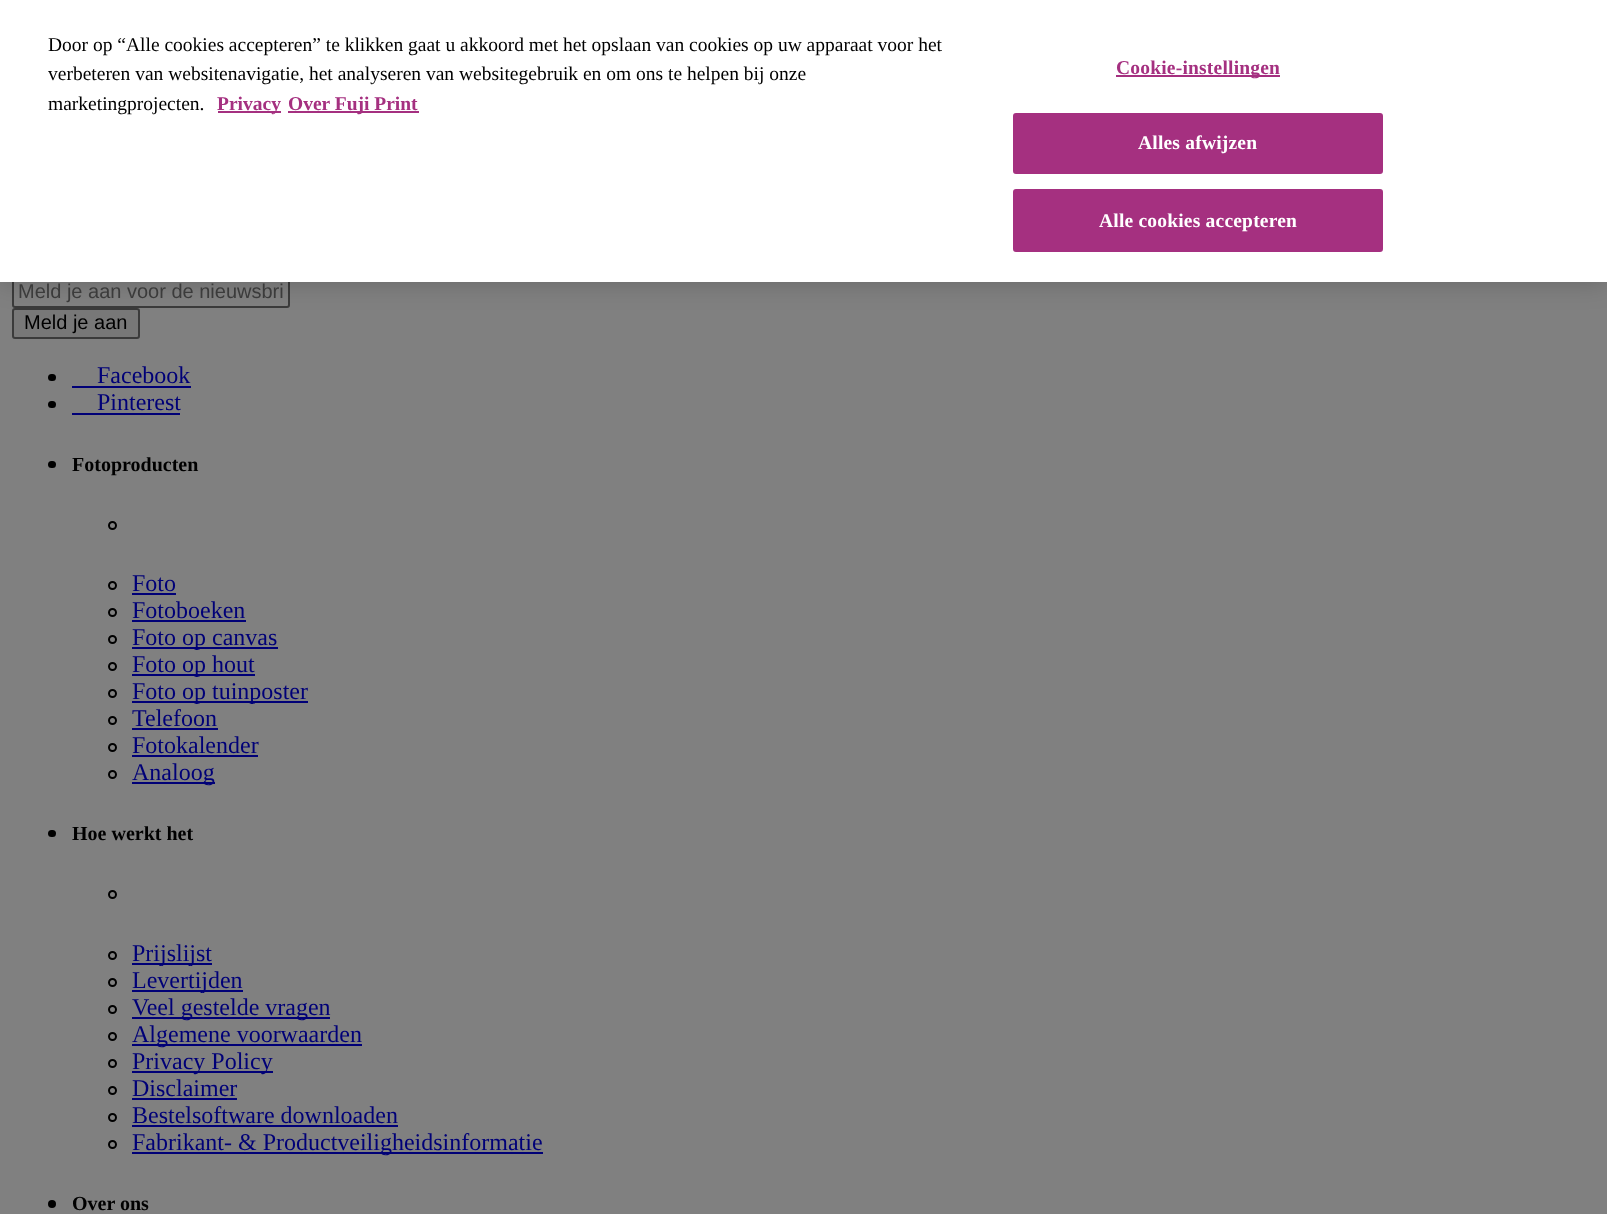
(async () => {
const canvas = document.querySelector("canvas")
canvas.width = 1607
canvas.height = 1214
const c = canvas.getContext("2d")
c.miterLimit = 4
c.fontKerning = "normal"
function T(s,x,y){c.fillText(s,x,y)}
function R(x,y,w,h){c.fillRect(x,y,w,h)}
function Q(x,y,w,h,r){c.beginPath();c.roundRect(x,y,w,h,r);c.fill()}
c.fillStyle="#808080"
R(0,0,1607,1214)
c.beginPath()
c.roundRect(13,277,276,30,2)
c.strokeStyle="#3b3b3b"
c.lineWidth=2
c.stroke()
c.fillStyle="#787878"
c.beginPath()
c.roundRect(13,309,126,29,2)
c.fill()
c.stroke()
c.fillStyle="#00000033"
c.filter="blur(13.5px)"
c.beginPath()
c.rect(0,0,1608,282)
c.fill()
c.filter="none"
c.fillStyle="#fff"
R(0,0,1607,282)
c.font="19.5px Liberation Serif"
c.fillStyle="#000"
T("Door op “Alle cookies accepteren” te klikken gaat u akkoord met het opslaan van cookies op uw apparaat voor het",48,51)
T("verbeteren van websitenavigatie, het analyseren van websitegebruik en om ons te helpen bij onze",48,80)
T("marketingprojecten.",48,110)
c.fillStyle="#a53080"
R(218,111,63,2)
c.font="bold 19.5px Liberation Serif"
T("Privacy",217,110)
R(288,111,131,2)
T("Over Fuji Print",288,110)
R(1116,75,164,2)
c.letterSpacing="0.2px"
T("Cookie-instellingen",1116,74)
c.beginPath()
c.roundRect(1014,114,368,59,2)
c.fill()
c.strokeStyle="#a53080"
c.stroke()
c.fillStyle="#fff"
T("Alles afwijzen",1138,149)
c.fillStyle="#a53080"
c.beginPath()
c.roundRect(1014,190,368,61,2)
c.fill()
c.stroke()
c.fillStyle="#fff"
T("Alle cookies accepteren",1099,227)
c.letterSpacing="0px"
c.font="20px Liberation Sans"
c.fillStyle="#3b3b3b"
T("Meld je aan voor de nieuwsbri",18,298)
c.fillStyle="#000"
T("Meld je aan",24,329)
Q(48,374,8,7,3.5)
c.font="24px Liberation Serif"
c.fillStyle="#007"
T("Facebook",97,383)
R(72,386,119,2)
c.fillStyle="#000"
Q(48,401,8,7,3.5)
c.fillStyle="#007"
T("Pinterest",97,410)
R(72,413,108,2)
c.fillStyle="#000"
Q(48,461,8,7,3.5)
c.font="bold 20px Liberation Serif"
T("Fotoproducten",72,471)
c.beginPath()
c.arc(112.5,525.5,3.5,0,7)
c.strokeStyle="#000"
c.stroke()
c.beginPath()
c.arc(112.5,585.5,3.5,0,7)
c.stroke()
c.font="24px Liberation Serif"
c.fillStyle="#007"
T("Foto",132,591)
R(132,593,44,2)
c.beginPath()
c.arc(112.5,612.5,3.5,0,7)
c.stroke()
T("Fotoboeken",132,618)
R(132,620,114,2)
c.beginPath()
c.arc(112.5,639.5,3.5,0,7)
c.stroke()
R(132,647,146,2)
T("Foto op canvas",132,645)
c.beginPath()
c.arc(112.5,666.5,3.5,0,7)
c.stroke()
R(132,674,123,2)
T("Foto op hout",132,672)
c.beginPath()
c.arc(112.5,693.5,3.5,0,7)
c.stroke()
R(132,701,176,2)
T("Foto op tuinposter",132,699)
c.beginPath()
c.arc(112.5,720.5,3.5,0,7)
c.stroke()
T("Telefoon",132,726)
R(132,728,86,2)
c.beginPath()
c.arc(112.5,747.5,3.5,0,7)
c.stroke()
T("Fotokalender",132,753)
R(132,755,126,2)
c.beginPath()
c.arc(112.5,774.5,3.5,0,7)
c.stroke()
R(132,782,83,2)
T("Analoog",132,780)
c.fillStyle="#000"
Q(48,830,8,7,3.5)
c.font="bold 20px Liberation Serif"
T("Hoe werkt het",72,840)
c.beginPath()
c.arc(112.5,894.5,3.5,0,7)
c.stroke()
c.beginPath()
c.arc(112.5,955.5,3.5,0,7)
c.stroke()
c.fillStyle="#007"
R(132,963,80,2)
c.font="24px Liberation Serif"
T("Prijslijst",132,961)
c.beginPath()
c.arc(112.5,982.5,3.5,0,7)
c.stroke()
R(132,990,111,2)
T("Levertijden",132,988)
c.beginPath()
c.arc(112.5,1009.5,3.5,0,7)
c.stroke()
R(132,1017,198,2)
T("Veel gestelde vragen",132,1015)
c.beginPath()
c.arc(112.5,1036.5,3.5,0,7)
c.stroke()
R(132,1044,230,2)
T("Algemene voorwaarden",132,1042)
c.beginPath()
c.arc(112.5,1063.5,3.5,0,7)
c.stroke()
R(132,1071,141,2)
T("Privacy Policy",132,1069)
c.beginPath()
c.arc(112.5,1090.5,3.5,0,7)
c.stroke()
T("Disclaimer",132,1096)
R(132,1098,105,2)
c.beginPath()
c.arc(112.5,1117.5,3.5,0,7)
c.stroke()
T("Bestelsoftware downloaden",132,1123)
R(132,1125,266,2)
c.beginPath()
c.arc(112.5,1144.5,3.5,0,7)
c.stroke()
R(132,1152,411,2)
T("Fabrikant- & Productveiligheidsinformatie",132,1150)
c.fillStyle="#000"
c.beginPath()
c.arc(52,1204,4,0,7)
c.fill()
c.font="bold 20px Liberation Serif"
T("Over ons",72,1210)
})()
